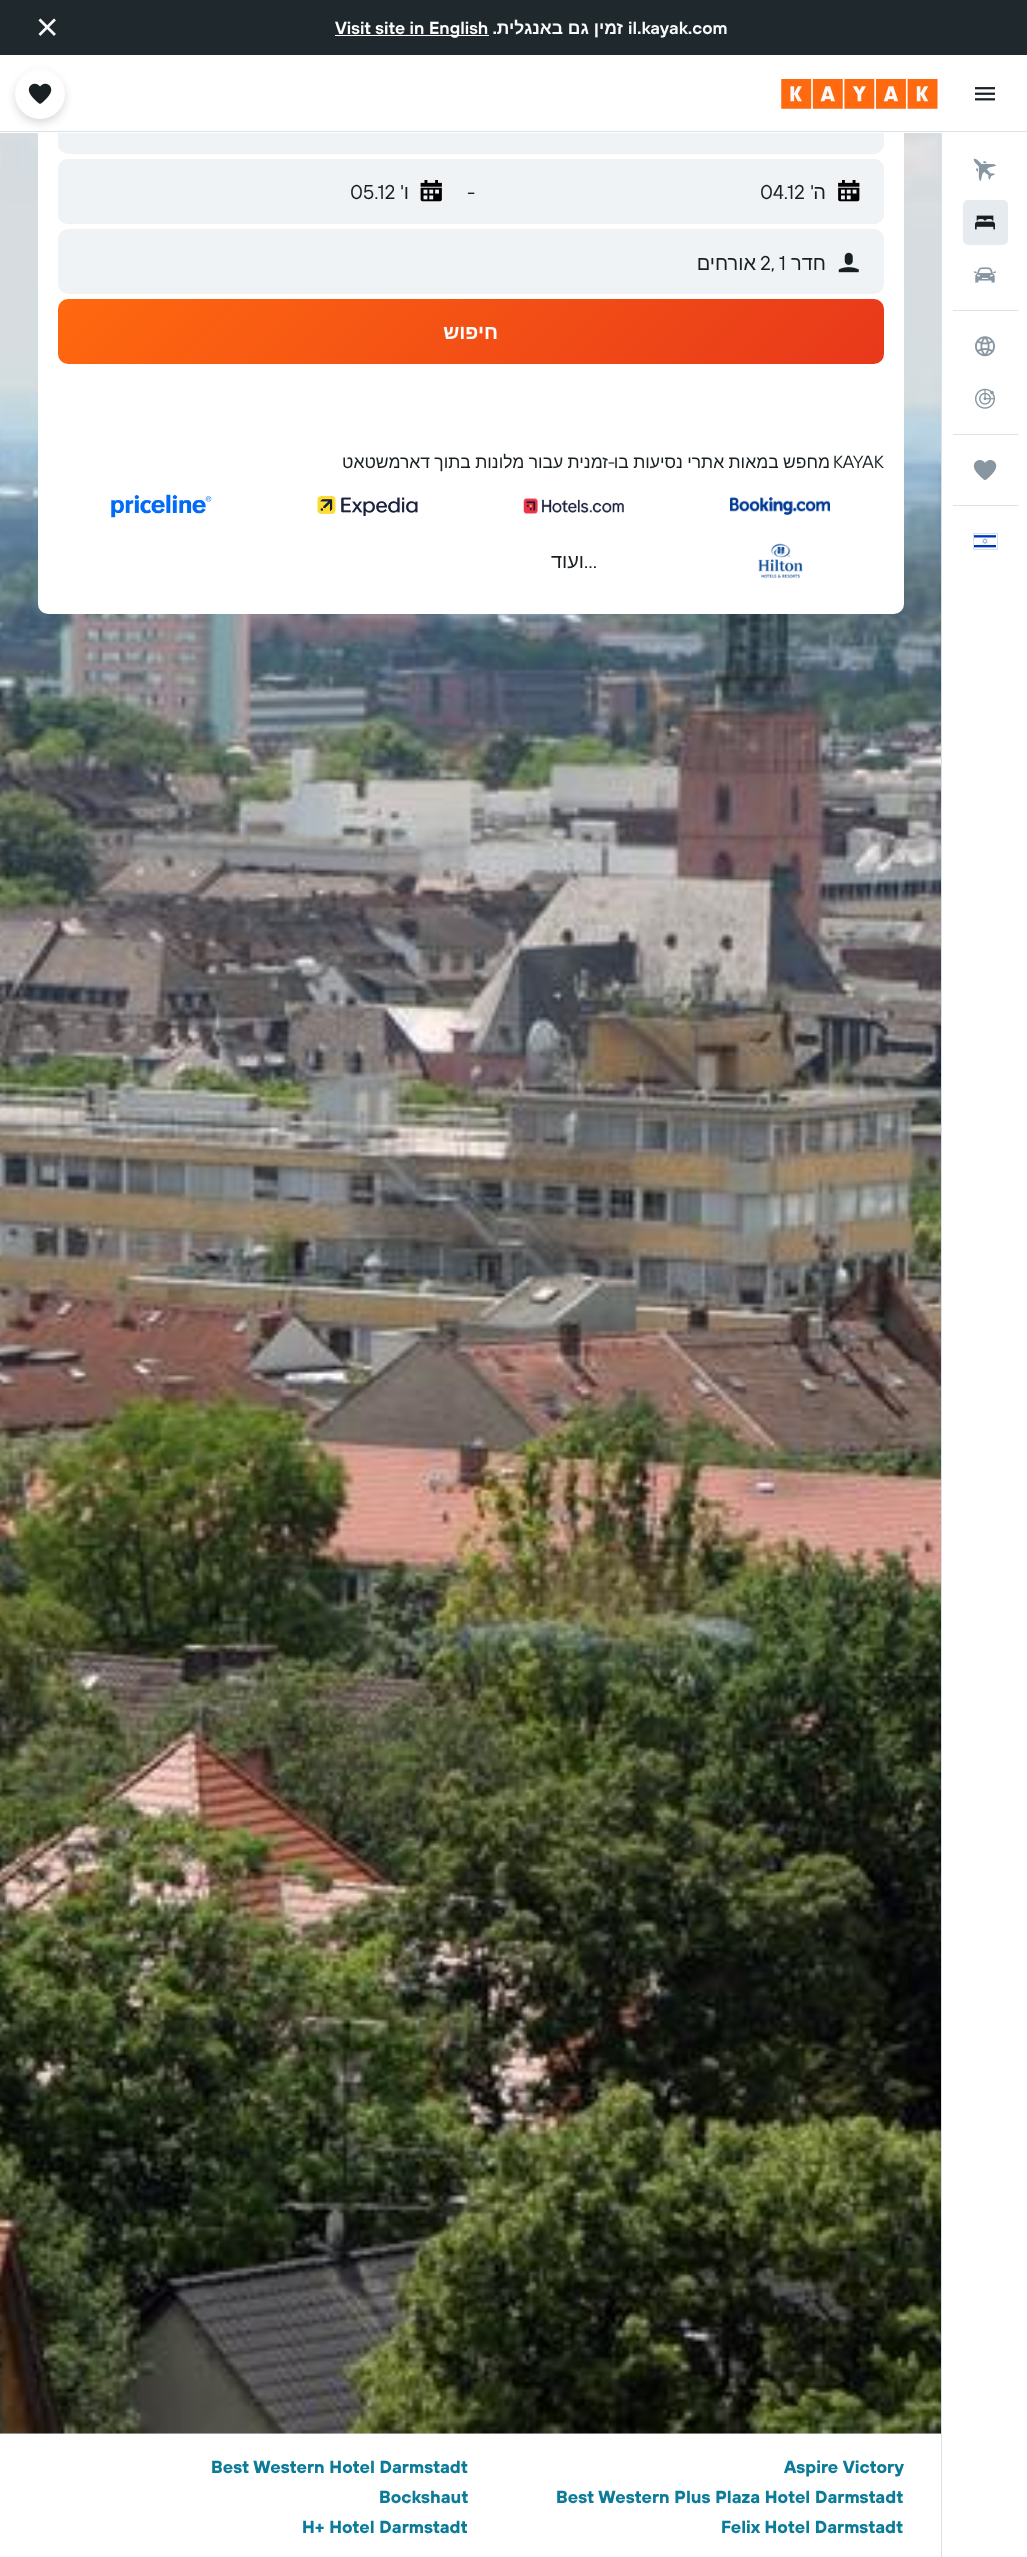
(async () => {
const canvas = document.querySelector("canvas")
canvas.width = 1027
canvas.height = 2557
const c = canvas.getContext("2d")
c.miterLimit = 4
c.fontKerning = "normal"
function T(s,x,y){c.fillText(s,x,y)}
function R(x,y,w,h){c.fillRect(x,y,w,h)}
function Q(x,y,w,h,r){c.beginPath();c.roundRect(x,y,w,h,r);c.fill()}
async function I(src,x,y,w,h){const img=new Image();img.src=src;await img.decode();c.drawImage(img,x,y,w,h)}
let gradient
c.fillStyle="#fff"
R(0,0,1027,2557)
c.fillStyle="#e5ebf0"
R(0,2433,941,1)
await I("12.png",0,133,941,2301)
c.fillStyle="#fff"
Q(38,4,866,610,10)
c.fillStyle="#f0f3f5"
c.beginPath()
c.roundRect(58.5,89.5,825,64,9.5)
c.fill()
c.strokeStyle="#f0f3f5"
c.stroke()
c.fillStyle="#fff"
R(58,89,826,44)
c.fillStyle="#1f282d"
R(0,0,1027,55)
await I("1.png",38,18,18,18)
c.fillStyle="#fff"
R(335,35,154,1)
c.font="600 17.5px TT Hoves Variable"
T("Visit site in English",335,34)
c.direction="rtl"
c.fillStyle="#f9fafb"
T(".",497,34)
c.font="bold 17.5px Liberation Sans"
T("זמין גם באנגלית",623,34)
c.direction="ltr"
c.font="600 17.5px TT Hoves Variable"
T("il.kayak.com",628,34)
c.fillStyle="#d9e2e8"
R(0,131,1027,1)
c.fillStyle="#19202429"
c.filter="blur(4px)"
c.beginPath()
c.roundRect(15,73,50,50,25)
c.fill()
c.filter="none"
c.fillStyle="#fff"
c.beginPath()
c.arc(40,94,25,0,7)
c.fill()
await I("2.png",28,83,24,21)
await I("3.png",781,79,157,30)
await I("4.png",975,87,20,14)
c.fillStyle="#d9e2e8"
R(941,133,1,2424)
await I("5.png",973,158,24,24)
c.fillStyle="#e6ebef"
Q(963,200,45,45,5)
await I("6.png",975,215,20,15)
await I("7.png",973,267,24,16)
c.fillStyle="#d9e2e8"
R(953,310,65,1)
await I("8.png",975,336,20,21)
await I("9.png",975,388,20,21)
R(953,434,65,1)
await I("10.png",973,460,24,20)
R(953,505,65,1)
c.strokeStyle="#d9e2e8"
c.strokeRect(973.5,533.5,24,16)
await I("11.png",974,535,22,13)
c.fillStyle="#f0f3f5"
Q(58,159,826,65,10)
Q(58,159,408,65,10)
c.font="20px TT Hoves Variable"
c.fillStyle="#192024"
T("05.12",350,199)
c.direction="rtl"
T("'",404,199)
c.font="20px Liberation Sans"
T("ו",409,199)
await I("13.png",420,180,22,22)
c.direction="ltr"
c.font="20px TT Hoves Variable"
T("-",467,199)
c.fillStyle="#f0f3f5"
Q(475,159,409,65,10)
c.fillStyle="#192024"
T("04.12",760,199)
c.direction="rtl"
T("'",814,199)
c.font="20px Liberation Sans"
T("ה",826,199)
await I("14.png",838,180,22,22)
c.fillStyle="#f0f3f5"
Q(58,229,826,65,10)
c.fillStyle="#192024"
T("אורחים",756,270)
c.direction="ltr"
c.font="20px TT Hoves Variable"
T("2, 1",760,270)
c.direction="rtl"
c.font="20px Liberation Sans"
T("חדר",826,270)
await I("15.png",838,252,21,21)
gradient = c.createLinearGradient(248,108,693,554)
gradient.addColorStop(0,"#ff690f")
gradient.addColorStop(1,"#e8381b")
c.fillStyle = gradient
Q(58,299,826,65,10)
c.font="bold 20px Liberation Sans"
c.fillStyle="#fff"
T("חיפוש",498,339)
c.wordSpacing="-0.5px"
c.font="17.5px Liberation Sans"
c.fillStyle="#192024"
T("זמנית עבור מלונות בתוך דארמשטאט",608,468)
c.wordSpacing="0px"
c.font="17.5px TT Hoves Variable"
T("-",615,468)
c.wordSpacing="-0.5px"
c.font="17.5px Liberation Sans"
T("מחפש במאות אתרי נסיעות בו",830,468)
c.wordSpacing="0px"
c.direction="ltr"
c.font="17.5px TT Hoves Variable"
T("KAYAK",833,468)
await I("16.png",111,494,101,24)
await I("17.png",317,496,101,20)
await I("18.png",523,498,101,16)
await I("19.png",730,497,100,18)
c.direction="rtl"
c.font="20px Liberation Sans"
T("ועוד",584,568)
c.font="20px TT Hoves Variable"
T("...",597,568)
await I("20.png",758,543,45,36)
c.direction="ltr"
c.font="bold 17.5px TT Hoves Variable"
c.fillStyle="#0b7b99"
T("Best Western Hotel Darmstadt",211,2473)
T("Aspire Victory",784,2473)
T("Bockshaut",379,2503)
T("Best Western Plus Plaza Hotel Darmstadt",556,2503)
T("H+ Hotel Darmstadt",302,2533)
T("Felix Hotel Darmstadt",721,2533)
})()
